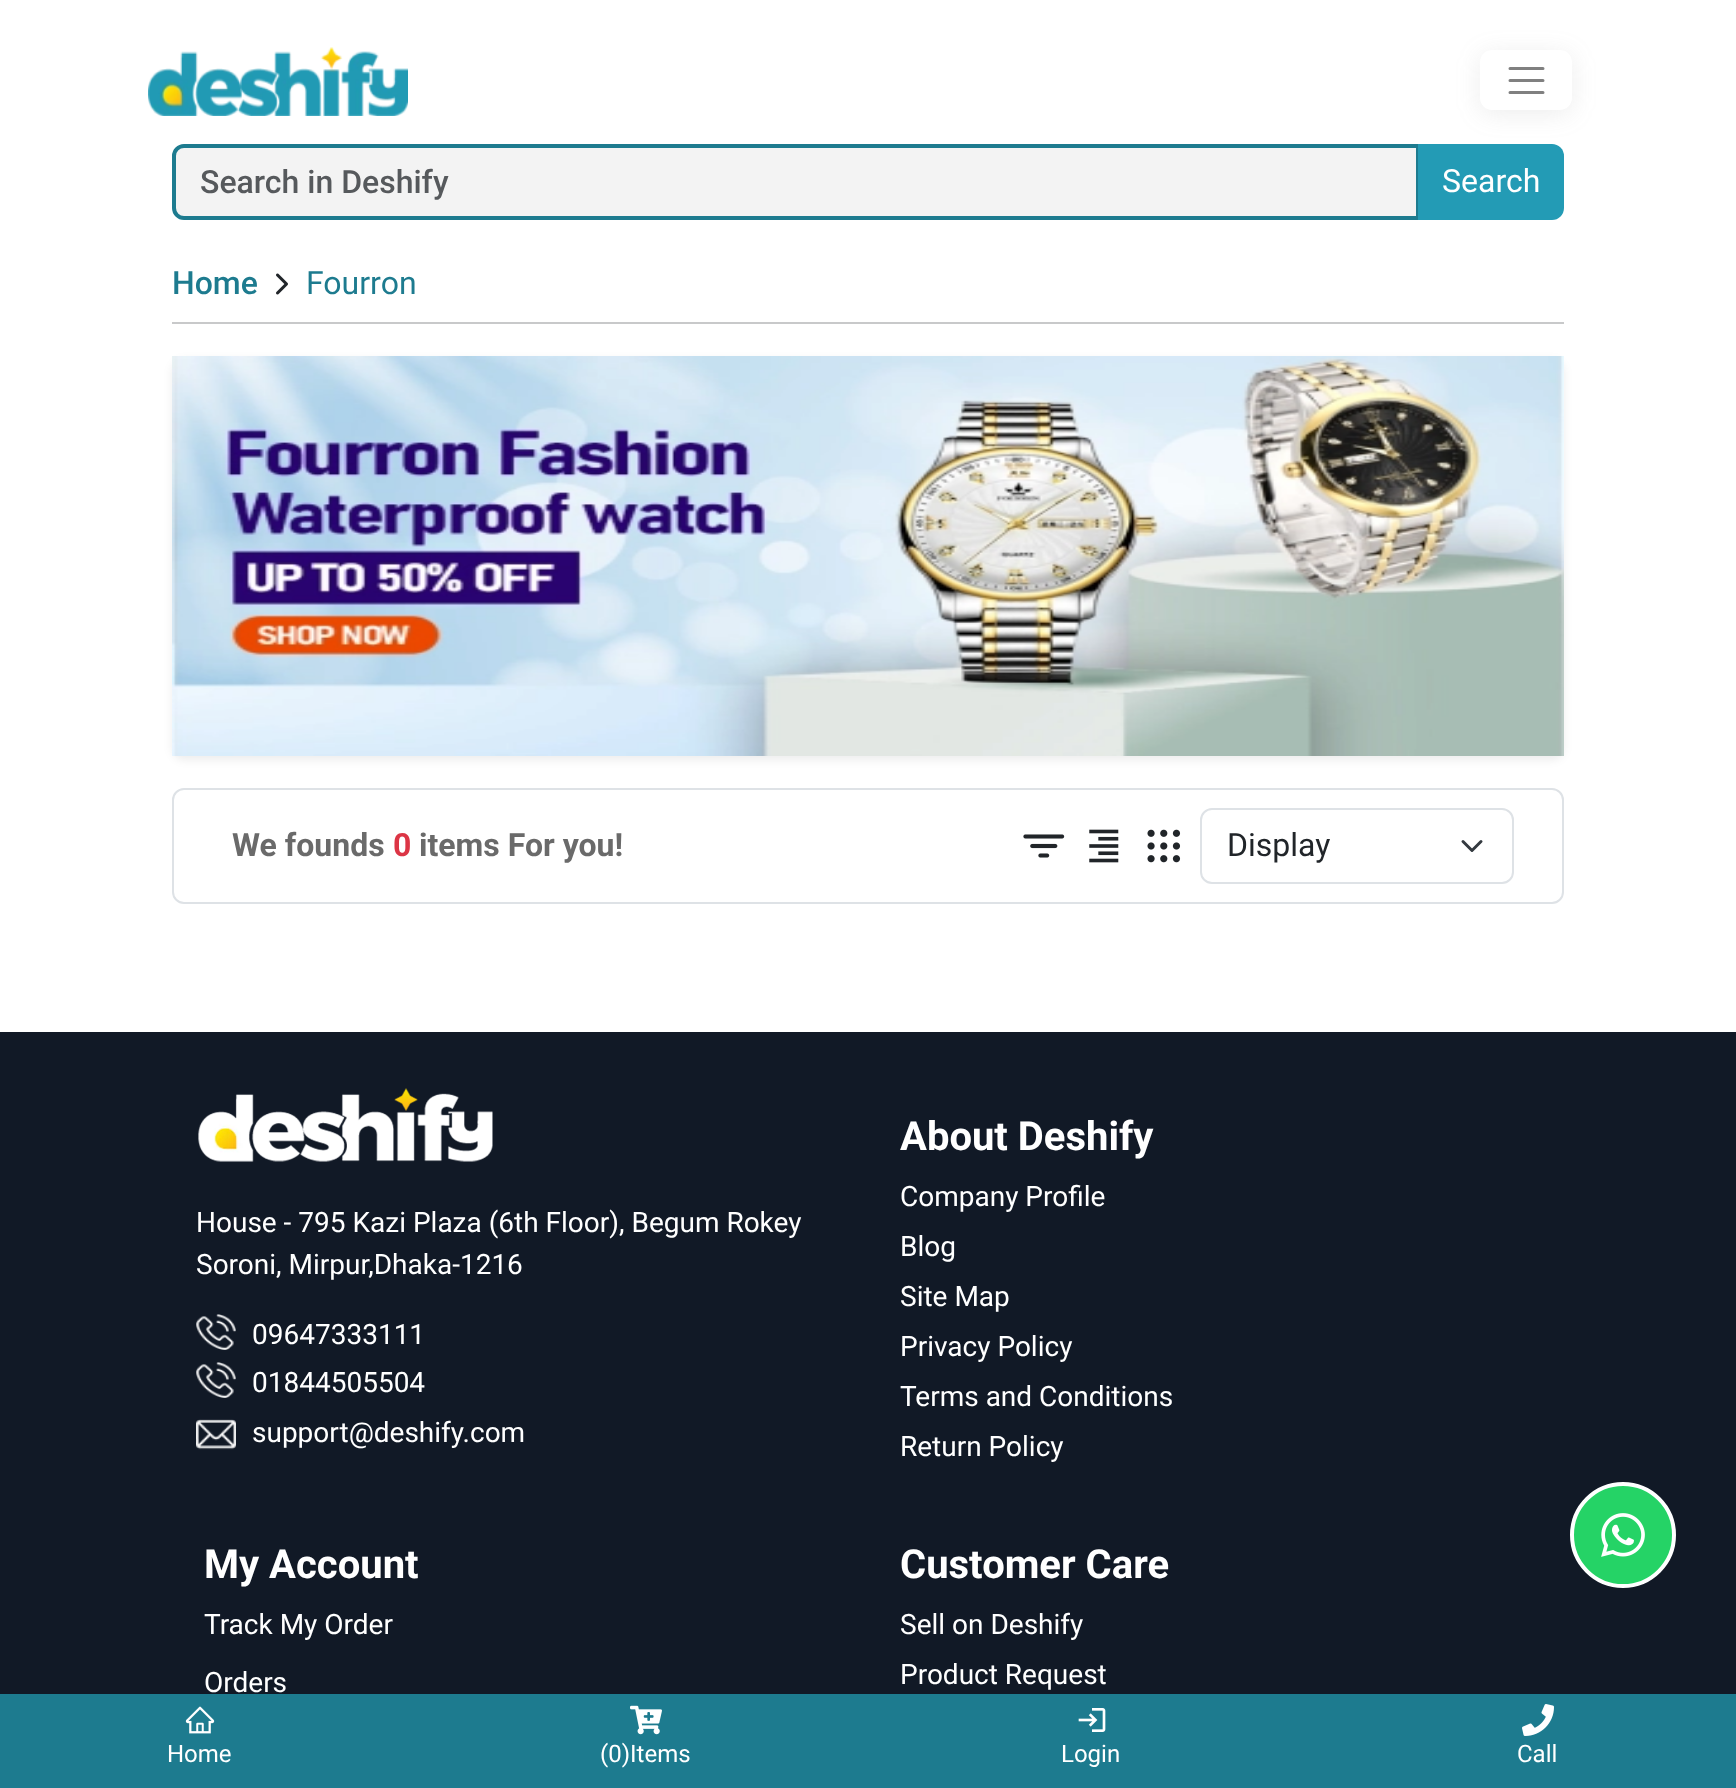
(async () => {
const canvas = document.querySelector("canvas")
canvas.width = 1736
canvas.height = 1788
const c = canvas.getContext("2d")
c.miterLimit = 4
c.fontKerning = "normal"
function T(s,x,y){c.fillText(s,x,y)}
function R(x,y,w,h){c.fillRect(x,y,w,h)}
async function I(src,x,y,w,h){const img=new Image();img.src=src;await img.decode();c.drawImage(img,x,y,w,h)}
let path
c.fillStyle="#fff"
R(0,0,1736,1788)
await I("1.png",148,47,260,69)
c.save()
path = new Path2D("M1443 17h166v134h-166zm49 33h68c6.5 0 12 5.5 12 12v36c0 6.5-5.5 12-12 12h-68c-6.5 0-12-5.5-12-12v-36c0-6.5 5.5-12 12-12z")
c.clip(path,"evenodd")
c.fillStyle="#83818124"
c.filter="blur(12px)"
c.beginPath()
c.roundRect(1480,54,92,60,12)
c.fill()
c.filter="none"
c.restore()
path = new Path2D("M1510 68.5h33m-33 12h33m-33 12h33")
c.strokeStyle="#808080"
c.lineWidth=3
c.lineCap="round"
c.stroke(path)
c.fillStyle="#f3f3f3"
c.beginPath()
c.roundRect(174,146,1244,72,[10,0,0,10])
c.fill()
c.strokeStyle="#1d7b8f"
c.lineWidth=4
c.stroke()
c.font="500 32px Roboto"
c.fillStyle="#56595c"
T("Search in Deshify",200,193)
c.fillStyle="#239bb5"
c.beginPath()
c.roundRect(1418,144,146,76,[0,12,12,0])
c.fill()
c.font="32px Roboto"
c.fillStyle="#fff"
T("Search",1442,192)
c.font="500 32px Roboto"
c.fillStyle="#1d7b8f"
T("Home",172,294)
await I("2.png",276,273,12,22)
c.font="32px Roboto"
T("Fourron",306,294)
c.fillStyle="#c8c9ca"
R(172,322,1392,2)
c.fillStyle="#00000012"
c.filter="blur(4px)"
c.beginPath()
c.roundRect(172,360,1392,400,12)
c.fill()
c.filter="none"
await I("3.png",172,356,1392,400)
c.beginPath()
c.roundRect(173,789,1390,114,11)
c.strokeStyle="#dee2e6"
c.lineWidth=2
c.stroke()
c.font="bold 32px Roboto"
c.fillStyle="#6a6a6a"
T("We founds",232,856)
c.fillStyle="#dc3545"
T("0",393,856)
c.fillStyle="#6a6a6a"
T("items For you!",419,856)
await I("4.png",1023,834,42,24)
await I("5.png",1089,829,30,34)
await I("6.png",1147,829,34,34)
path = new Path2D("M1463 841.5l9 9l9-9")
c.strokeStyle="#343a40"
c.lineWidth=3
c.lineJoin="round"
c.stroke(path)
c.beginPath()
c.roundRect(1201,809,312,74,11)
c.strokeStyle="#dee2e6"
c.lineWidth=2
c.lineJoin="miter"
c.stroke()
c.font="32px Roboto"
c.fillStyle="#212529"
T("Display",1227,856)
c.fillStyle="#111926"
R(0,1032,1736,662)
await I("7.png",198,1088,295,74)
c.font="28px Roboto"
c.fillStyle="#fff"
T("House - 795 Kazi Plaza (6th Floor), Begum Rokey",196,1232)
T("Soroni, Mirpur,Dhaka-1216",196,1274)
await I("8.png",196,1314,40,36)
T("09647333111",252,1344)
await I("8.png",196,1362,40,36)
T("01844505504",252,1392)
await I("9.png",196,1419,40,31)
T("support@deshify.com",252,1442)
c.font="bold 40px Roboto"
T("About Deshify",900,1150)
c.font="28px Roboto"
T("Company Profile",900,1206)
T("Blog",900,1256)
T("Site Map",900,1306)
T("Privacy Policy",900,1356)
T("Terms and Conditions",900,1406)
T("Return Policy",900,1456)
c.font="bold 40px Roboto"
T("My Account",204,1578)
c.font="28px Roboto"
T("Track My Order",204,1634)
T("Orders",204,1692)
c.font="bold 40px Roboto"
T("Customer Care",900,1578)
c.font="28px Roboto"
T("Sell on Deshify",900,1634)
T("Product Request",900,1684)
c.fillStyle="#25d366"
c.beginPath()
c.arc(1623,1535,51,0,7)
c.fill()
c.strokeStyle="#fff"
c.lineWidth=4
c.stroke()
await I("10.png",1601,1513,44,44)
c.fillStyle="#1d7b8f"
R(0,1694,1736,94)
await I("11.png",185,1706,30,28)
c.font="24px Roboto"
c.fillStyle="#fff"
T("Home",167,1762)
await I("12.png",630,1705,32,30)
T("(0)Items",600,1762)
await I("13.png",1078,1708,28,24)
T("Login",1061,1762)
await I("14.png",1522,1704,32,32)
T("Call",1517,1762)
})()
